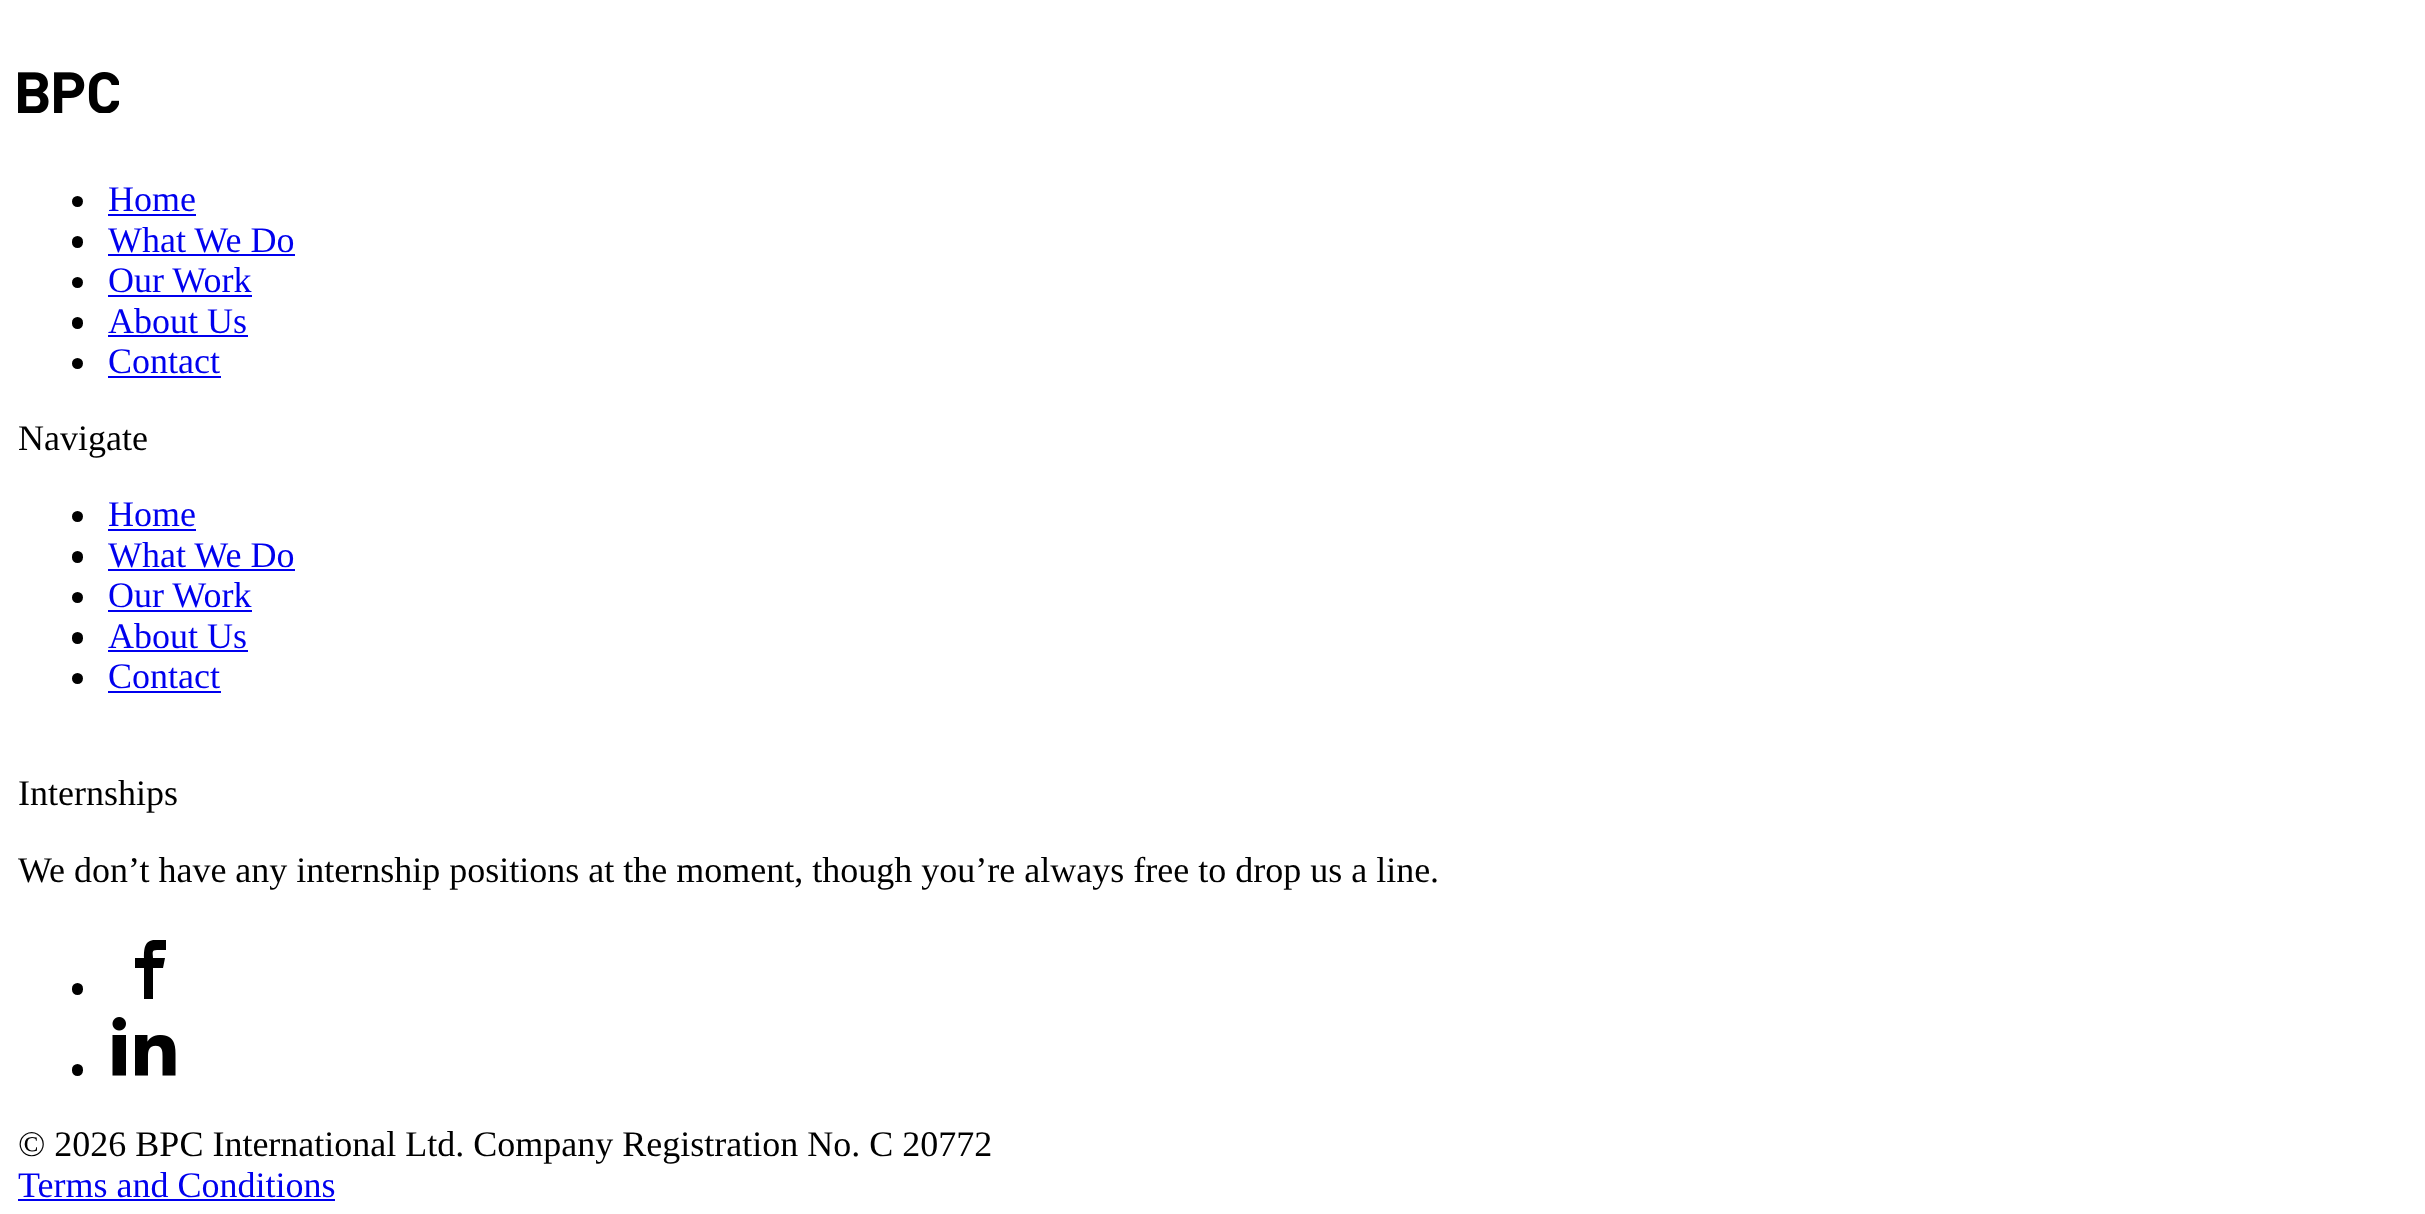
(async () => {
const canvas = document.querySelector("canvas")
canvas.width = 2425
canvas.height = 1214
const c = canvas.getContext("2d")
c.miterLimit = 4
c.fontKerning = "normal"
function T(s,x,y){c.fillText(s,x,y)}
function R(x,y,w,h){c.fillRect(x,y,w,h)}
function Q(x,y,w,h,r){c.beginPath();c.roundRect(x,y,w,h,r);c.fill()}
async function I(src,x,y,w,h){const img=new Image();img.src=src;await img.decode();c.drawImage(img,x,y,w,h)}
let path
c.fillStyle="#fff"
R(0,0,2425,1214)
await I("1.png",18,72,101,41)
c.fillStyle="#000"
c.beginPath()
c.arc(77.5,201.5,5.5,0,7)
c.fill()
c.font="36px Liberation Serif"
c.fillStyle="#00e"
T("Home",108,211)
R(108,214,88,2)
c.fillStyle="#000"
Q(72,236,11,12,5.5)
c.fillStyle="#00e"
T("What We Do",108,252)
R(108,254,187,2)
c.fillStyle="#000"
c.beginPath()
c.arc(77.5,282.5,5.5,0,7)
c.fill()
c.fillStyle="#00e"
T("Our Work",108,292)
R(108,295,144,2)
c.fillStyle="#000"
Q(72,317,11,12,5.5)
c.fillStyle="#00e"
T("About Us",108,333)
R(108,335,140,2)
c.fillStyle="#000"
c.beginPath()
c.arc(77.5,363.5,5.5,0,7)
c.fill()
c.fillStyle="#00e"
T("Contact",108,373)
R(108,376,113,2)
c.fillStyle="#000"
T("Navigate",18,450)
c.beginPath()
c.arc(77.5,516.5,5.5,0,7)
c.fill()
c.fillStyle="#00e"
T("Home",108,526)
R(108,529,88,2)
c.fillStyle="#000"
Q(72,551,11,12,5.5)
c.fillStyle="#00e"
T("What We Do",108,567)
R(108,569,187,2)
c.fillStyle="#000"
c.beginPath()
c.arc(77.5,597.5,5.5,0,7)
c.fill()
c.fillStyle="#00e"
T("Our Work",108,607)
R(108,610,144,2)
c.fillStyle="#000"
Q(72,632,11,12,5.5)
c.fillStyle="#00e"
T("About Us",108,648)
R(108,650,140,2)
c.fillStyle="#000"
c.beginPath()
c.arc(77.5,678.5,5.5,0,7)
c.fill()
c.fillStyle="#00e"
T("Contact",108,688)
R(108,691,113,2)
c.fillStyle="#000"
T("Internships",18,805)
T("We don’t have any internship positions at the moment, though you’re always free to drop us a line.",18,882)
Q(72,983,11,12,5.5)
path = new Path2D("M155 940c-11 0-11 10-11 18h-9v10h9v31h9v-31h10l2-10h-12c0-5-2-8 4-8h9v-10z")
c.fill(path)
Q(72,1064,11,12,5.5)
await I("2.png",112,1017,64,59)
T("© 2026 BPC International Ltd. Company Registration No. C 20772",18,1156)
c.fillStyle="#00e"
T("Terms and Conditions",18,1197)
R(18,1199,317,2)
})()
